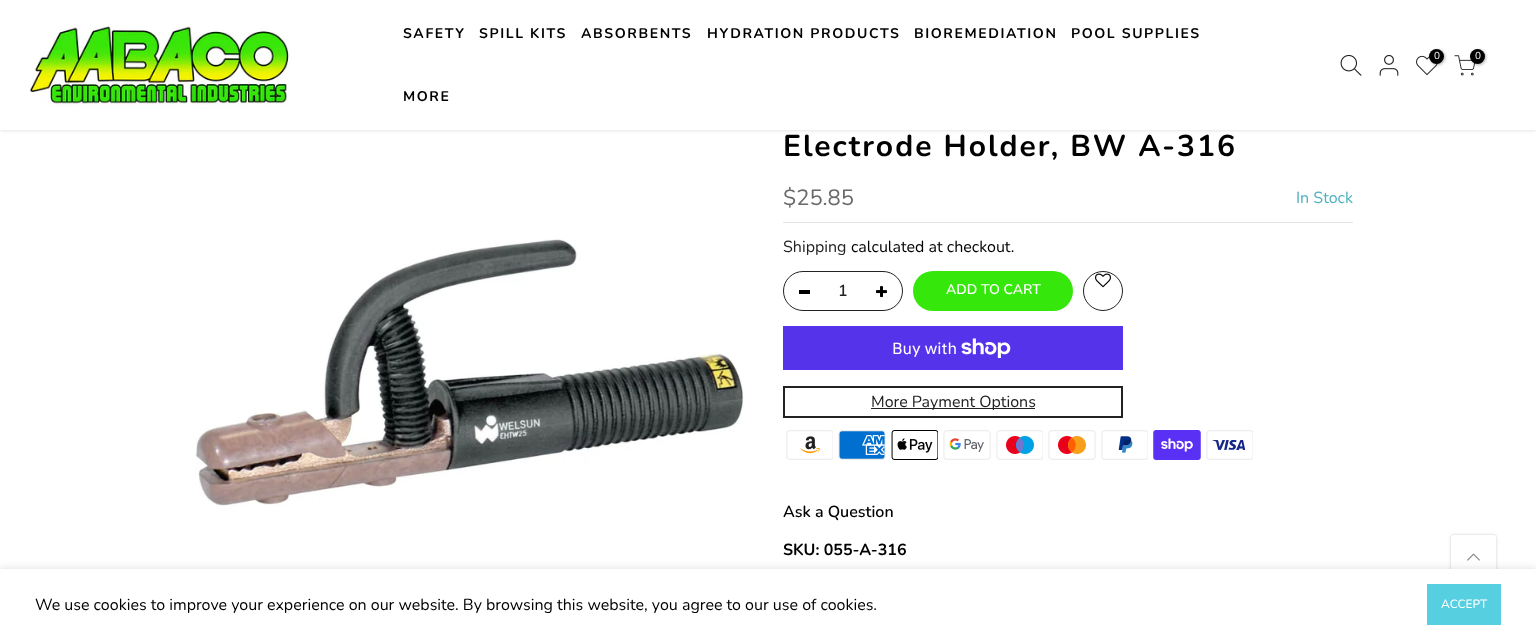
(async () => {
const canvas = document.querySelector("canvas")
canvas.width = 1536
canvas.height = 640
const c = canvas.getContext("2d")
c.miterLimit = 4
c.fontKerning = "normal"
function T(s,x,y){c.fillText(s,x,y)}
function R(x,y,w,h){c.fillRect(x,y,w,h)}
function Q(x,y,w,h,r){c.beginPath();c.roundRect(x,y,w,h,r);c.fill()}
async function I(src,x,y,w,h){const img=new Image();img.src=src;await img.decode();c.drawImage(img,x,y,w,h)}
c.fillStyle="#fff"
R(0,0,1536,640)
c.fillStyle="#0000001a"
c.filter="blur(1.5px)"
c.beginPath()
c.rect(0,1,1536,130)
c.fill()
c.filter="none"
c.fillStyle="#fff"
R(0,0,1536,130)
await I("1.png",30,26,260,83)
c.letterSpacing="1.6px"
c.font="bold 14px Nunito"
c.fillStyle="#000"
T("SAFETY",403,38)
T("SPILL KITS",479,38)
T("ABSORBENTS",581,38)
T("HYDRATION PRODUCTS",707,38)
T("BIOREMEDIATION",914,38)
T("POOL SUPPLIES",1071,38)
T("MORE",403,101)
await I("2.png",1340,54,22,22)
await I("3.png",1379,54,20,22)
await I("4.png",1416,55,22,20)
c.fillStyle="#0000004d"
c.filter="blur(1.5px)"
c.beginPath()
c.roundRect(1430,50,15,15,7.5)
c.fill()
c.filter="none"
c.fillStyle="#000"
c.beginPath()
c.arc(1436.5,56.5,7.5,0,7)
c.fill()
c.letterSpacing="0px"
c.font="10px Nunito"
c.fillStyle="#fff"
T("0",1434,59)
await I("5.png",1454,55,21,21)
c.fillStyle="#0000004d"
c.filter="blur(1.5px)"
c.beginPath()
c.roundRect(1471,50,15,15,7.5)
c.fill()
c.filter="none"
c.fillStyle="#000"
c.beginPath()
c.arc(1477.5,56.5,7.5,0,7)
c.fill()
c.fillStyle="#fff"
T("0",1475,59)
await I("6.png",195,239,549,268)
c.letterSpacing="2px"
c.font="bold 30px Nunito"
c.fillStyle="#000"
T("Electrode Holder, BW A-316",783,156)
c.fillStyle="#e5e5e5"
R(783,222,570,1)
c.letterSpacing="0px"
c.font="22px Nunito"
c.fillStyle="#696969"
T("$25.85",783,205)
c.font="16px Nunito"
c.fillStyle="#4eb0be"
T("In Stock",1296,203)
c.fillStyle="#222"
T("Shipping",783,252)
c.fillStyle="#000"
T("calculated at checkout.",851,252)
c.beginPath()
c.roundRect(783.5,271.5,119,39,19.5)
c.strokeStyle="#222"
c.stroke()
c.font="600 16px Nunito"
c.fillStyle="#222"
T("1",838,296)
c.fillStyle="#000"
R(799,290,11,4)
await I("7.png",876,286,11,12)
c.fillStyle="#35e70a"
Q(913,271,160,40,20)
c.font="600 14px Nunito"
c.fillStyle="#fff"
T("ADD TO CART",946,294)
c.beginPath()
c.arc(1103,291,19.5,0,7)
c.stroke()
await I("8.png",1095,273,16,15)
c.fillStyle="#5433eb"
R(783,326,340,44)
c.font="16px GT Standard"
c.fillStyle="#fff"
T("Buy with",892,354)
await I("9.png",961,338,50,20)
c.lineWidth=2
c.strokeRect(784,387,338,30)
c.fillStyle="#222"
R(871,408,164,1)
c.font="16px Nunito"
T("More Payment Options",871,407)
await I("10.png",786,430,47,30)
await I("11.png",838,430,48,30)
await I("12.png",891,430,47,30)
await I("13.png",943,430,48,30)
await I("14.png",996,430,47,30)
await I("15.png",1048,430,48,30)
await I("16.png",1101,430,47,30)
await I("17.png",1153,430,48,30)
await I("18.png",1206,430,47,30)
c.font="600 16px Nunito"
c.fillStyle="#000"
T("Ask a Question",783,517)
c.font="bold 16px Nunito"
T("SKU: 055-A-316",783,555)
c.fillStyle="#00000033"
c.filter="blur(1.5px)"
c.beginPath()
c.roundRect(1451,535,45,45,3)
c.fill()
c.filter="none"
c.fillStyle="#fff"
Q(1451,535,45,45,3)
await I("19.png",1467,553,13,8)
c.fillStyle="#00000024"
c.filter="blur(4.5px)"
c.beginPath()
c.rect(0,569,1536,71)
c.fill()
c.filter="none"
c.fillStyle="#fff"
R(0,569,1536,71)
c.font="16px Nunito"
c.fillStyle="#000"
T("We use cookies to improve your experience on our website. By browsing this website, you agree to our use of cookies.",35,610)
c.fillStyle="#56cfe1"
R(1427,584,74,41)
c.font="500 12px Nunito"
c.fillStyle="#fff"
T("ACCEPT",1441,608)
})()
